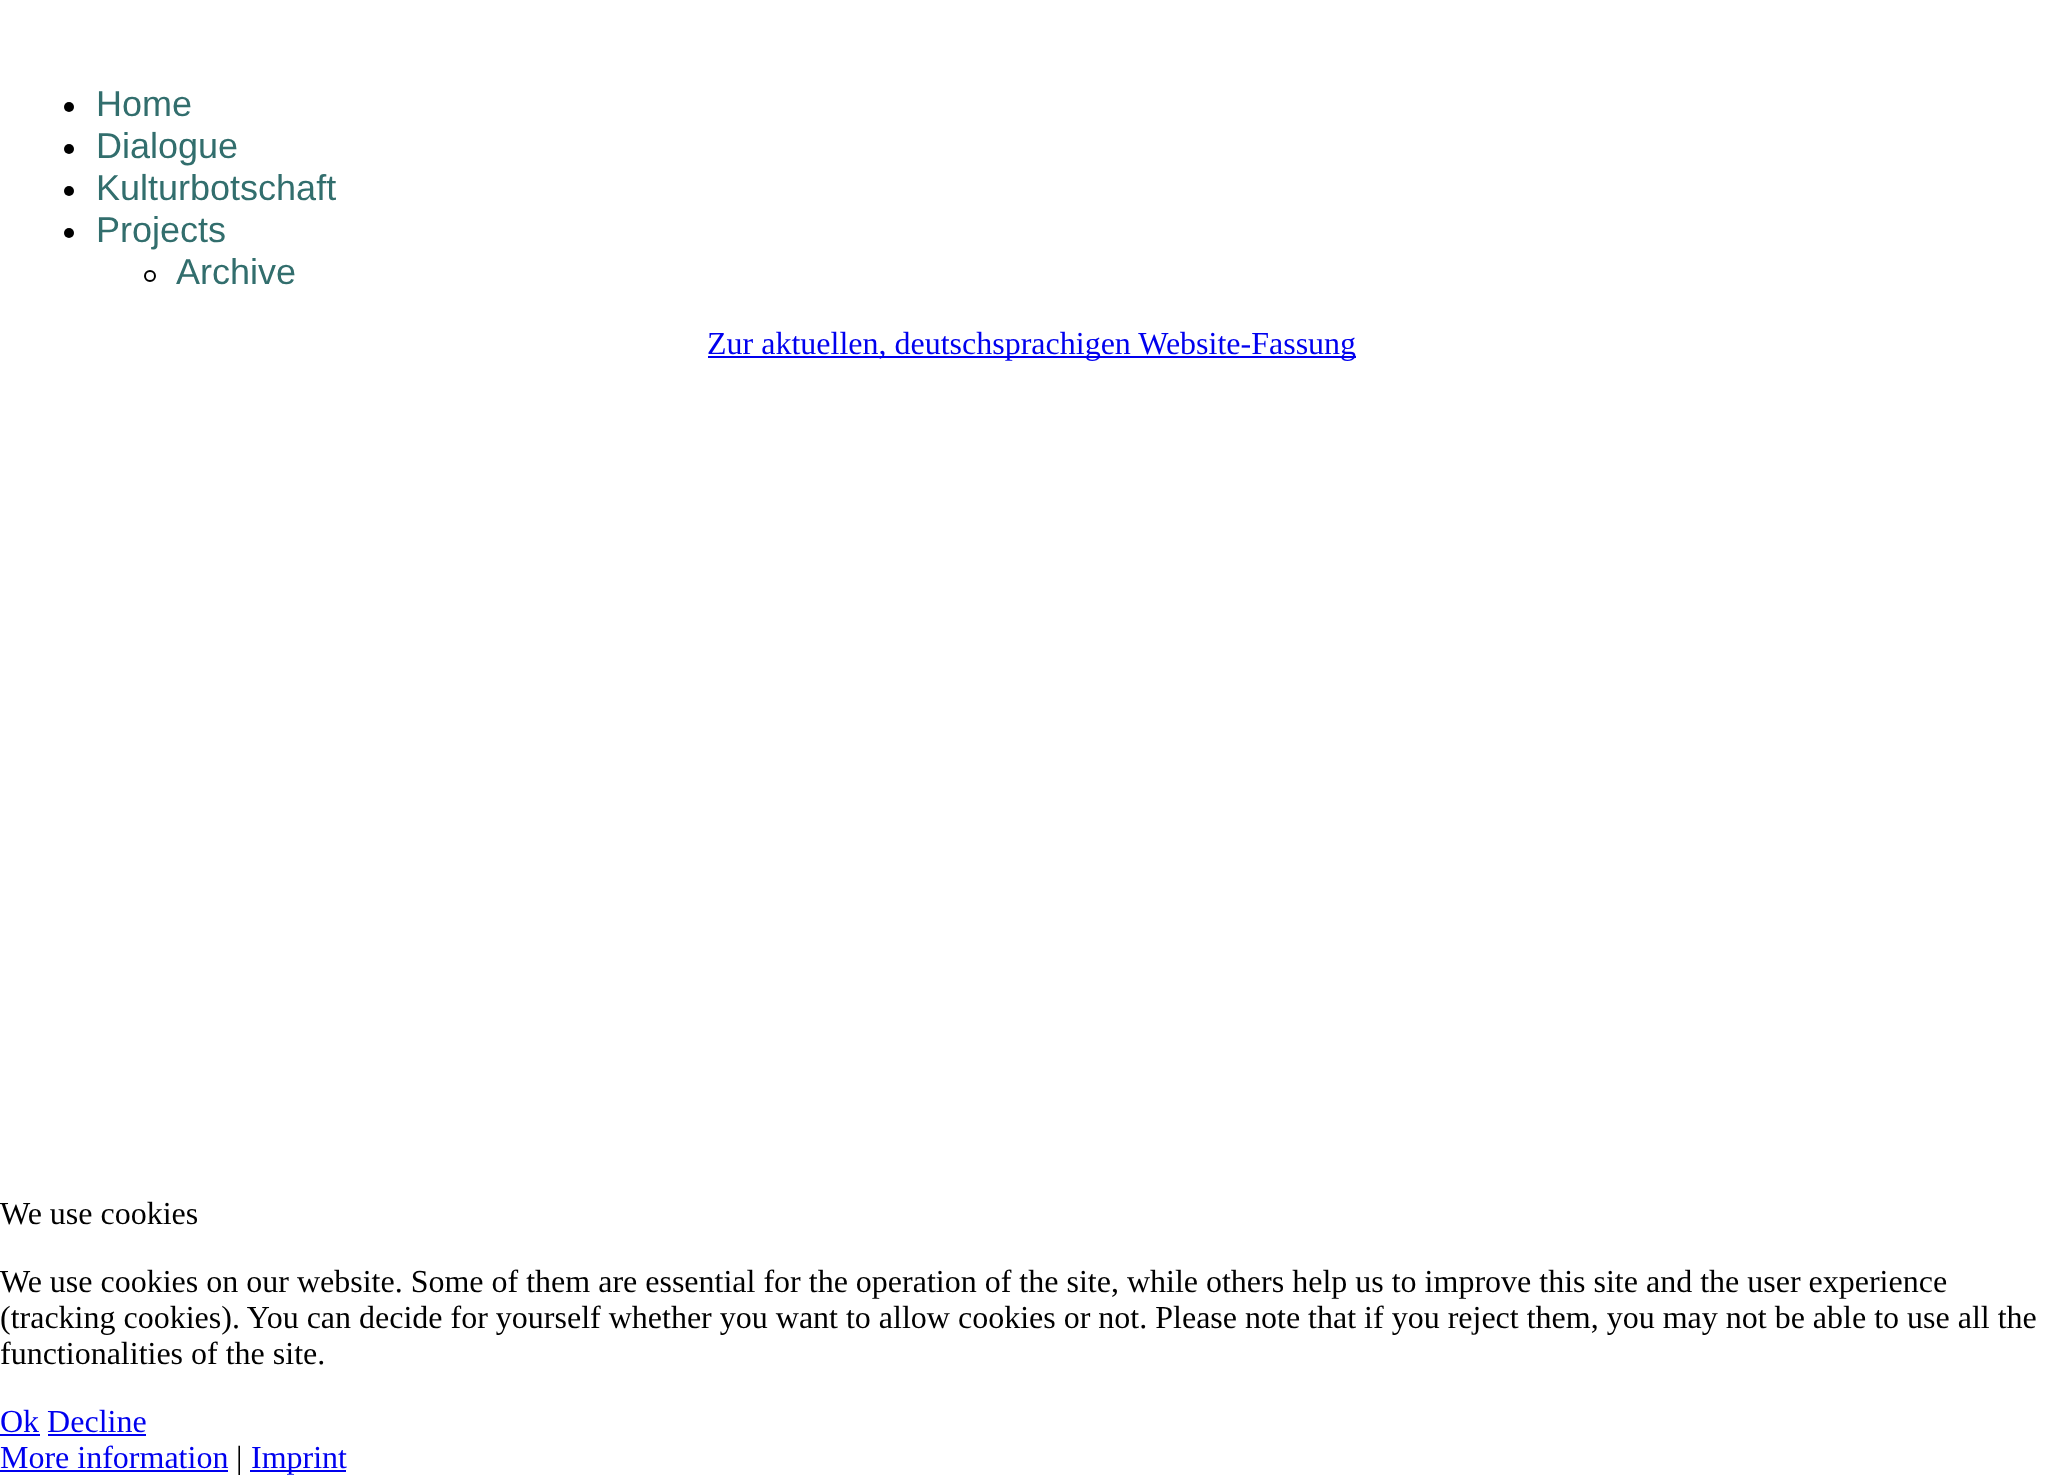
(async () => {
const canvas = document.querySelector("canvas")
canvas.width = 2063
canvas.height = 1475
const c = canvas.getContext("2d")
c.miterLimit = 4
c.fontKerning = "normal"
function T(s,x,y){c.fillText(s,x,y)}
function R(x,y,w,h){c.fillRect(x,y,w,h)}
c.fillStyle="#fff"
R(0,0,2063,1475)
c.fillStyle="#000"
c.beginPath()
c.arc(69,107,5,0,7)
c.fill()
c.font="36px Liberation Sans"
c.fillStyle="#326e6d"
T("Home",96,116)
c.fillStyle="#000"
c.beginPath()
c.arc(69,149,5,0,7)
c.fill()
c.fillStyle="#326e6d"
T("Dialogue",96,158)
c.fillStyle="#000"
c.beginPath()
c.arc(69,191,5,0,7)
c.fill()
c.fillStyle="#326e6d"
T("Kulturbotschaft",96,200)
c.fillStyle="#000"
c.beginPath()
c.arc(69,233,5,0,7)
c.fill()
c.fillStyle="#326e6d"
T("Projects",96,242)
c.beginPath()
c.arc(150,276,5,0,7)
c.strokeStyle="#000"
c.lineWidth=2
c.stroke()
T("Archive",176,284)
c.fillStyle="#00e"
R(708,356,648,2)
c.font="32px Liberation Serif"
T("Zur aktuellen, deutschsprachigen Website-Fassung",707,354)
c.fillStyle="#000"
T("We use cookies",0,1224)
T("We use cookies on our website. Some of them are essential for the operation of the site, while others help us to improve this site and the user experience",0,1292)
T("(tracking cookies). You can decide for yourself whether you want to allow cookies or not. Please note that if you reject them, you may not be able to use all the",0,1328)
T("functionalities of the site.",0,1364)
c.fillStyle="#00e"
T("Ok Decline",0,1432)
R(0,1434,40,2)
R(48,1434,98,2)
T("More information",0,1468)
R(0,1470,228,2)
c.fillStyle="#000"
T("|",236,1468)
c.fillStyle="#00e"
R(250,1470,96,2)
T("Imprint",251,1468)
})()
